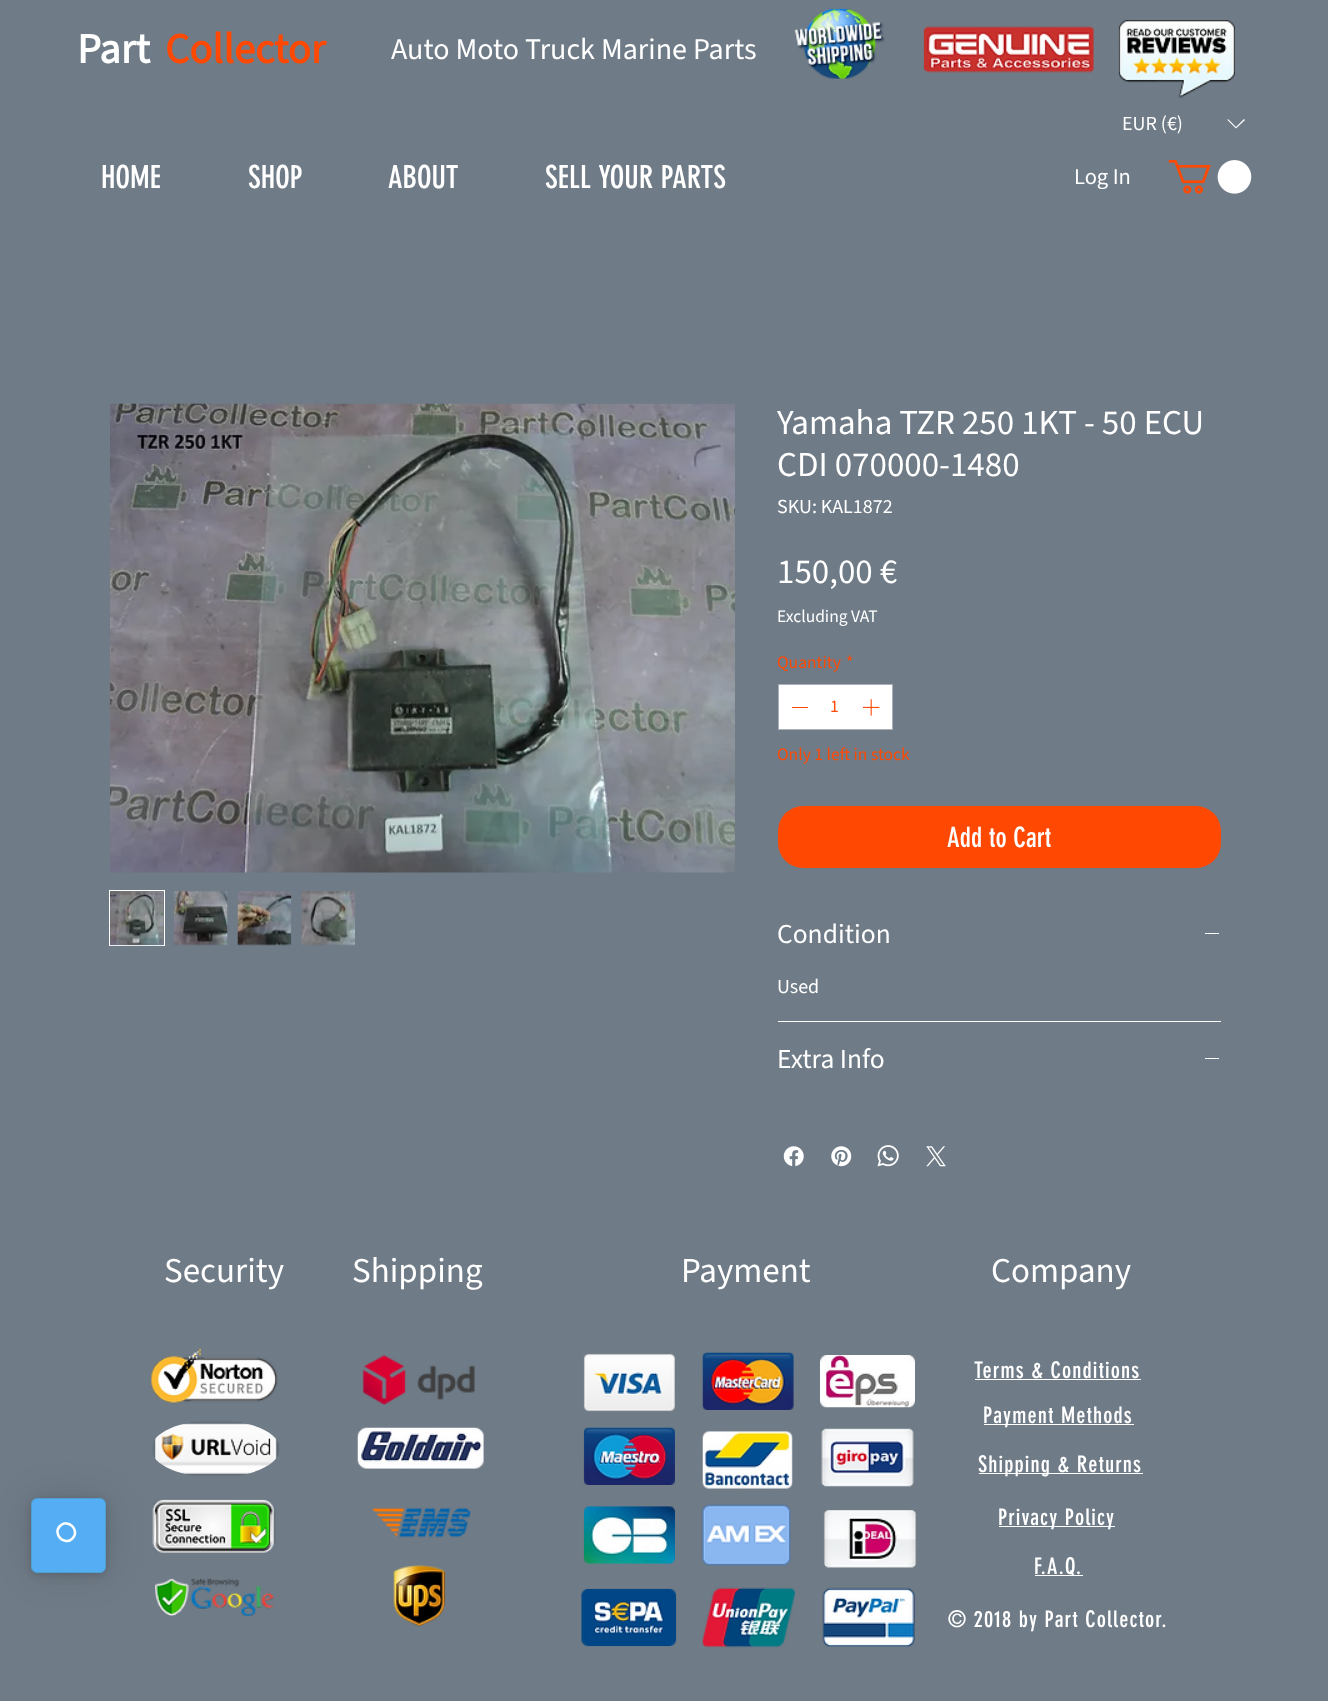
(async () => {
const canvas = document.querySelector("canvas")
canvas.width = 1328
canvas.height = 1701
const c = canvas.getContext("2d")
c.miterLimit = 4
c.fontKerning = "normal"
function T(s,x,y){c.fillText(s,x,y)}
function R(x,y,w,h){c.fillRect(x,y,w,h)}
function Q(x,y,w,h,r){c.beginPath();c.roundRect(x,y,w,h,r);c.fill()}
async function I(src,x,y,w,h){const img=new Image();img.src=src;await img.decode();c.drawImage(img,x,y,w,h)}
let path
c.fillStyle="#6f7b87"
R(0,0,1328,1701)
c.font="bold 42.5px 'Source Sans 3'"
c.fillStyle="#fff"
T("Part",77,63)
c.fillStyle="#ff4903"
T("Collector",165,63)
c.font="30px 'Source Sans 3'"
c.fillStyle="#fff"
T("Auto Moto Truck Marine Parts",391,59)
await I("1.png",794,8,91,71)
await I("2.png",923,26,171,47)
await I("3.png",1118,20,117,78)
c.font="20px 'Source Sans 3'"
T("EUR (€)",1122,130)
path = new Path2D("M1244 119l1 1l-9 8.5l-8.5-8.5l.5-1l8 8z")
c.fill(path,"evenodd")
c.font="31.25px 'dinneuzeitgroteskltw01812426'"
T("HOME",101,188)
T("SHOP",248,188)
T("ABOUT",388,188)
T("SELL YOUR PARTS",545,188)
c.font="22.5px 'Source Sans 3'"
T("Log In",1074,184)
await I("4.png",1168,160,84,34)
await I("5.png",110,403,625,470)
c.strokeStyle="#fff"
c.strokeRect(109.5,890.5,55,55)
await I("6.png",110,891,54,55)
await I("7.png",174,891,54,55)
await I("8.png",237,891,55,55)
await I("9.png",301,891,54,55)
c.font="35px 'Source Sans 3'"
T("Yamaha TZR 250 1KT - 50 ECU",777,434)
T("CDI 070000-1480",777,476)
c.font="20px 'Source Sans 3'"
T("SKU: KAL1872",777,513)
c.font="35px 'Source Sans 3'"
T("150,00 €",777,583)
c.font="17.5px 'Source Sans 3'"
T("Excluding VAT",777,622)
c.fillStyle="#ff4903"
T("Quantity",777,668)
T("*",846,668)
c.fillStyle="#fff"
c.beginPath()
c.rect(778.5,684.5,114,45)
c.fill()
c.strokeStyle="#a9b0b7"
c.stroke()
c.fillStyle="#ff4903"
R(792,707,16,1)
T("1",830,712)
await I("10.png",862,699,18,17)
T("Only 1 left in stock",777,760)
Q(778,806,443,62,25)
c.font="27.5px 'dinneuzeitgroteskltw01812426'"
c.fillStyle="#fff"
T("Add to Cart",947,847)
R(778,1021,443,1)
c.font="27.5px 'Source Sans 3'"
T("Condition",777,943)
R(1205,933,14,1)
c.font="20px 'Source Sans 3'"
T("Used",777,993)
c.font="27.5px 'Source Sans 3'"
T("Extra Info",777,1068)
R(1205,1058,14,1)
await I("11.png",783,1146,21,21)
await I("12.png",831,1146,21,21)
await I("13.png",877,1145,22,22)
await I("14.png",926,1146,20,21)
c.font="35px 'Source Sans 3'"
T("Security",164,1282)
T("Shipping",352,1282)
T("Payment",681,1282)
T("Company",991,1282)
await I("15.png",151,1348,127,56)
await I("16.png",362,1355,113,50)
await I("17.png",583,1353,92,59)
await I("18.png",702,1352,92,58)
await I("19.png",820,1355,95,53)
c.letterSpacing="1.1px"
c.font="22.5px 'dinneuzeitgroteskltw01812426'"
T("Terms & Conditions",974,1378)
R(975,1379,166,1)
R(984,1424,150,1)
T("Payment Methods",983,1423)
await I("20.png",152,1421,128,55)
await I("21.png",357,1427,127,42)
await I("22.png",583,1427,92,58)
await I("23.png",702,1431,91,58)
await I("24.png",821,1428,93,59)
R(979,1473,164,1)
T("Shipping & Returns",978,1472)
await I("25.png",152,1498,124,56)
await I("26.png",372,1507,99,31)
await I("27.png",583,1506,92,58)
await I("28.png",701,1504,90,62)
await I("29.png",823,1509,94,59)
R(999,1526,116,1)
T("Privacy Policy",998,1525)
await I("30.png",155,1578,119,39)
await I("31.png",393,1565,53,62)
await I("32.png",581,1588,96,59)
await I("33.png",702,1587,93,61)
await I("34.png",822,1587,93,60)
R(1035,1575,48,1)
T("F.A.Q.",1034,1574)
T("© 2018 by Part Collector.",948,1627)
c.fillStyle="#00000026"
c.filter="blur(5px)"
c.beginPath()
c.roundRect(31,1500,75,75,6)
c.fill()
c.filter="none"
c.fillStyle="#0000001a"
c.filter="blur(19px)"
c.beginPath()
c.roundRect(31,1498,75,75,6)
c.fill()
c.filter="none"
c.fillStyle="#55adf4"
c.beginPath()
c.roundRect(31.5,1498.5,74,74,5.5)
c.fill()
c.strokeStyle="#4ea0cf"
c.stroke()
path = new Path2D("M60 1526c8-8 20.5 4 12.5 12.5c-8 8-20.5-4.5-12.5-12.5z")
c.strokeStyle="#fff"
c.lineWidth=2.5
c.stroke(path)
})()
